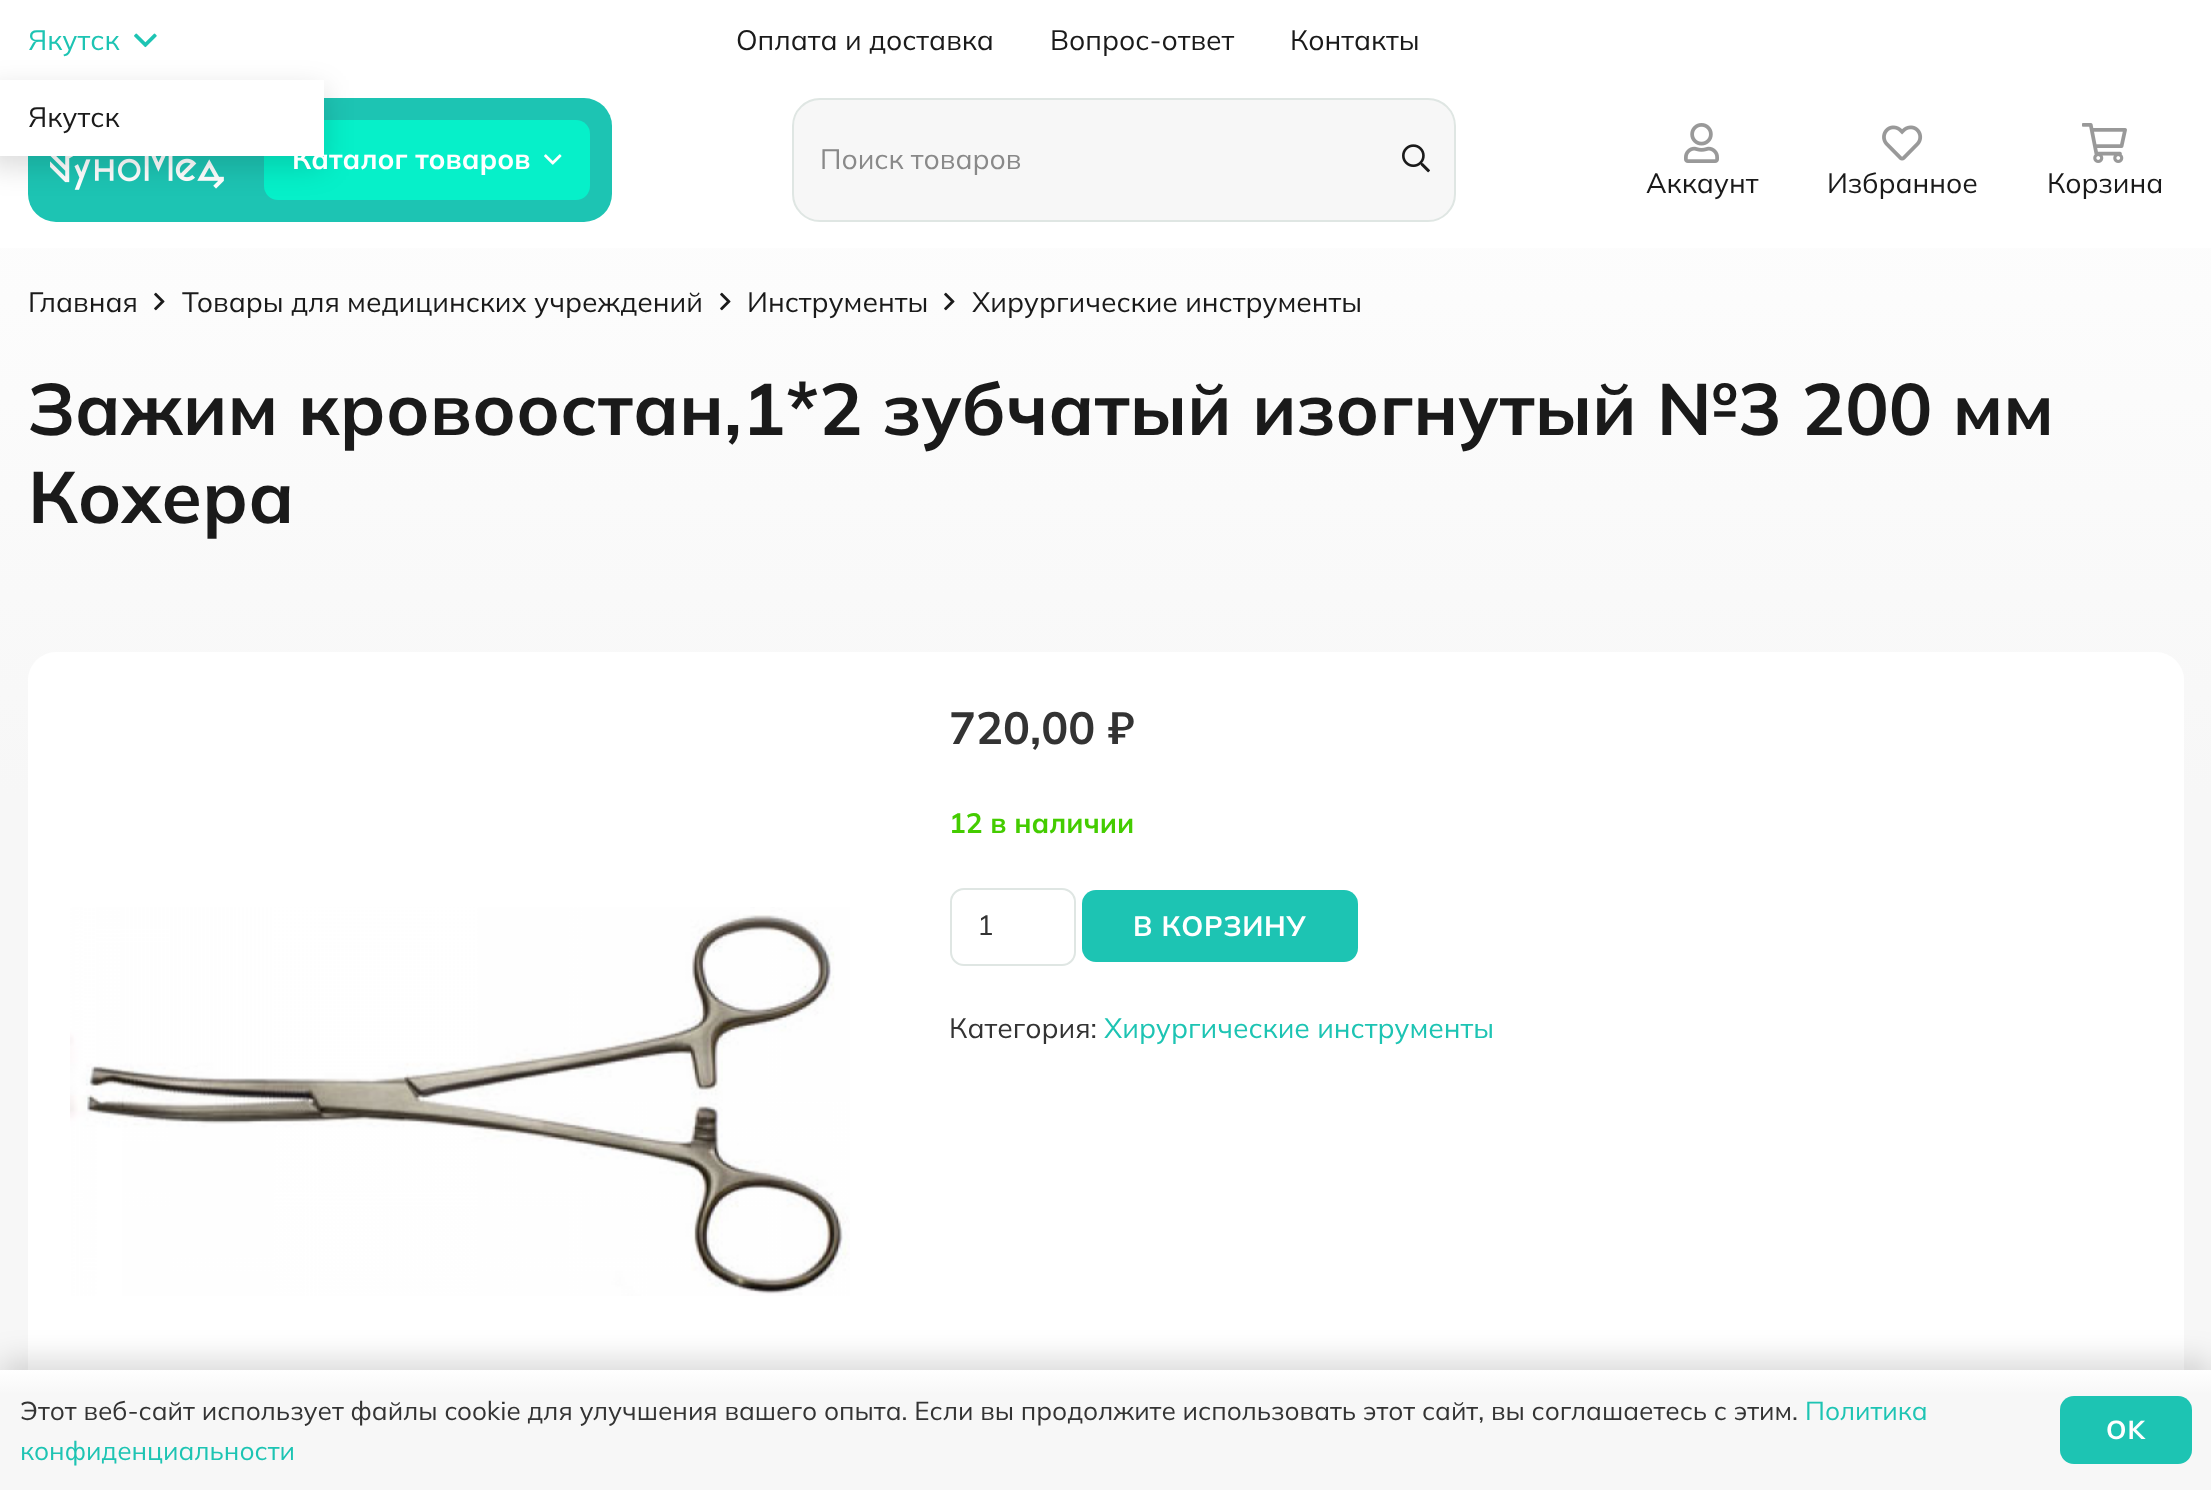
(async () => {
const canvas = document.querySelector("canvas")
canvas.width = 2211
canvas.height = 1490
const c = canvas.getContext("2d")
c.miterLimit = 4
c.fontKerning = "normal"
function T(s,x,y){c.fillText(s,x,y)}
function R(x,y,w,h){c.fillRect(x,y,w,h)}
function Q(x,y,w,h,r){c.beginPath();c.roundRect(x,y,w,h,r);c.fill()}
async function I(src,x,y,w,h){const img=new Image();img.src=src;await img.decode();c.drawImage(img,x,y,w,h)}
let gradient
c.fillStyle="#fff"
R(0,0,2211,1490)
gradient = c.createLinearGradient(1106,0,1106,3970)
gradient.addColorStop(0,"#fff")
gradient.addColorStop(.2,"#f7f7f7")
gradient.addColorStop(1,"#f7f7f7")
c.fillStyle = gradient
R(0,248,2211,1122)
c.font="200 28px Mulish"
c.fillStyle="#1dc4b3"
T("Якутск",28,50)
await I("1.png",134,33,23,15)
Q(28,98,584,124,28)
await I("2.png",50,156,174,34)
c.fillStyle="#06f0c9"
Q(264,120,326,80,14)
c.fillStyle="#00000026"
c.filter="blur(15px)"
c.beginPath()
c.rect(-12,90,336,76)
c.fill()
c.filter="none"
c.fillStyle="#fff"
R(0,80,324,76)
c.fillStyle="#1a1a1a"
T("Якутск",28,127)
T("Оплата и доставка",736,50)
T("Вопрос-ответ",1050,50)
T("Контакты",1290,50)
c.font="200 28px 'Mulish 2'"
c.fillStyle="#fff"
T("Каталог товаров",292,169)
await I("3.png",544,154,18,11)
c.fillStyle="#f7f7f7"
c.beginPath()
c.roundRect(793,99,662,122,27)
c.fill()
c.strokeStyle="#dfe6e3"
c.lineWidth=2
c.stroke()
c.font="200 28px Mulish"
c.fillStyle="#898989"
T("Поиск товаров",820,169)
await I("4.png",1402,144,28,29)
await I("5.png",1684,123,35,40)
c.fillStyle="#1a1a1a"
T("Аккаунт",1646,193)
await I("6.png",1882,125,41,36)
T("Избранное",1827,193)
await I("7.png",2082,123,45,40)
T("Корзина",2047,193)
T("Главная",28,312)
await I("8.png",154,292,11,19)
T("Товары для медицинских учреждений",182,312)
await I("8.png",720,292,11,19)
T("Инструменты",747,312)
await I("8.png",944,292,11,19)
T("Хирургические инструменты",972,312)
c.font="200 72.75px 'Mulish 2'"
T("Зажим кровоостан,1*2 зубчатый",28,435)
T("изогнутый №3 200 мм",1252,435)
T("Кохера",28,523)
c.fillStyle="#fff"
Q(28,652,2156,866,28)
await I("9.png",70,907,780,389)
c.font="200 45px 'Mulish 2'"
c.fillStyle="#333"
T("720,00 ₽",949,744)
c.font="200 28px 'Mulish 2'"
c.fillStyle="#4c0"
T("12 в наличии",949,833)
c.beginPath()
c.roundRect(951,889,124,76,13)
c.stroke()
c.font="200 28px Mulish"
c.fillStyle="#333"
T("1",977,935)
c.fillStyle="#1dc4b3"
Q(1082,890,276,72,14)
c.letterSpacing="0.75px"
c.font="200 28px 'Mulish 2'"
c.fillStyle="#fff"
T("В КОРЗИНУ",1133,936)
c.letterSpacing="0px"
c.font="200 28px Mulish"
c.fillStyle="#333"
T("Категория:",949,1038)
c.fillStyle="#1dc4b3"
T("Хирургические инструменты",1104,1038)
c.fillStyle="#00000026"
c.filter="blur(15px)"
c.beginPath()
c.rect(0,1360,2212,120)
c.fill()
c.filter="none"
gradient = c.createLinearGradient(1106,1370,1106,1490)
gradient.addColorStop(0,"#fff")
gradient.addColorStop(.2,"#f7f7f7")
gradient.addColorStop(1,"#f7f7f7")
c.fillStyle = gradient
R(0,1370,2211,120)
c.font="200 26px Mulish"
c.fillStyle="#333"
T("Этот веб-сайт использует файлы cookie для улучшения вашего опыта. Если вы продолжите использовать этот сайт, вы соглашаетесь с этим.",20,1420)
c.fillStyle="#1dc4b3"
T("Политика",1805,1420)
T("конфиденциальности",20,1460)
Q(2060,1396,132,68,14)
c.letterSpacing="1px"
c.font="200 26px 'Mulish 2'"
c.fillStyle="#fff"
T("OK",2106,1439)
})()
